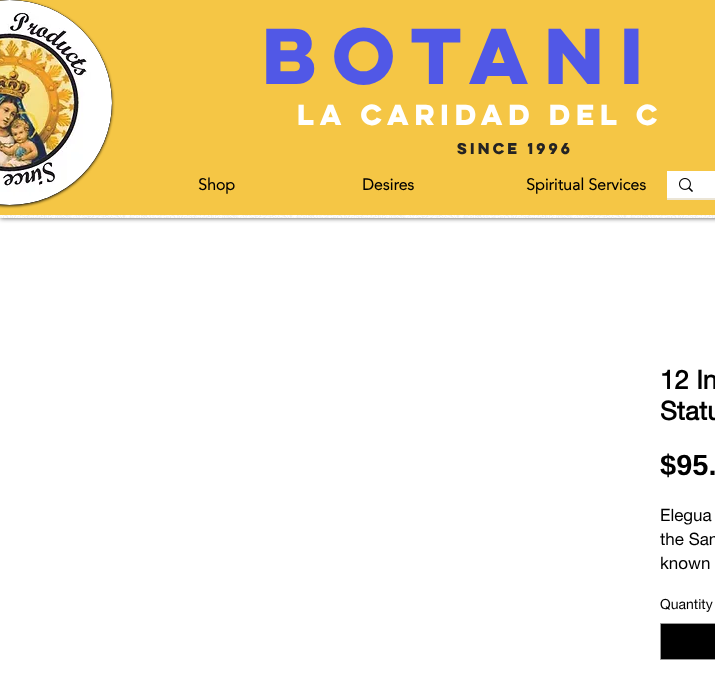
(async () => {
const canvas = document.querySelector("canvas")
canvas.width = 715
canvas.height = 679
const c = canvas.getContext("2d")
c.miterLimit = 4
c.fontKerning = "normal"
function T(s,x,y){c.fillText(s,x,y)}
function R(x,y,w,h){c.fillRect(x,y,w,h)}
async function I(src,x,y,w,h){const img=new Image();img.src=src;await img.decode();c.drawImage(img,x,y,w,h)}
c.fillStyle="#fff"
R(0,0,715,679)
c.fillStyle="#000000b3"
c.filter="blur(2.5px)"
c.beginPath()
c.rect(0,0,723,218)
c.fill()
c.filter="none"
c.fillStyle="#fff"
R(0,215,715,3)
await I("1.png",0,215,715,3)
c.fillStyle="#f5c645"
R(0,0,715,215)
c.fillStyle="#000000de"
c.filter="blur(1.5px)"
c.beginPath()
c.roundRect(-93,1,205,205,102.5)
c.fill()
c.filter="none"
c.fillStyle="#000"
c.beginPath()
c.arc(9.5,102.5,102.5,0,7)
c.fill()
await I("2.png",0,0,112,205)
c.font="bold 71px 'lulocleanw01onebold'"
c.fillStyle="#5158e6"
T("Botani",262,84)
c.font="bold 26px 'lulocleanw01onebold'"
c.fillStyle="#fff"
T("La caridad del c",297,125)
c.font="bold 14px 'lulocleanw01onebold'"
c.fillStyle="#242323"
T("Since 1996",457,154)
c.font="bold 16px 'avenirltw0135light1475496'"
c.fillStyle="#000"
T("Shop",198,190)
T("Desires",362,190)
T("Spiritual Services",526,190)
c.fillStyle="#ebe5d6"
R(667,198,48,2)
c.fillStyle="#fff"
R(667,171,48,27)
await I("3.png",679,178,14,14)
c.font="bold 26px helvetica neue"
c.fillStyle="#000"
T("12 In",660,389)
T("Statu",660,420)
c.font="bold 29px Liberation Sans"
T("$95.",660,475)
c.font="17px helvetica neue"
T("Elegua",660,521)
T("the San",660,545)
T("known",660,569)
c.font="14px helvetica neue"
T("Quantity",660,609)
c.beginPath()
c.rect(660.5,623.5,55,36)
c.fill()
c.strokeStyle="#999"
c.stroke()
})()
